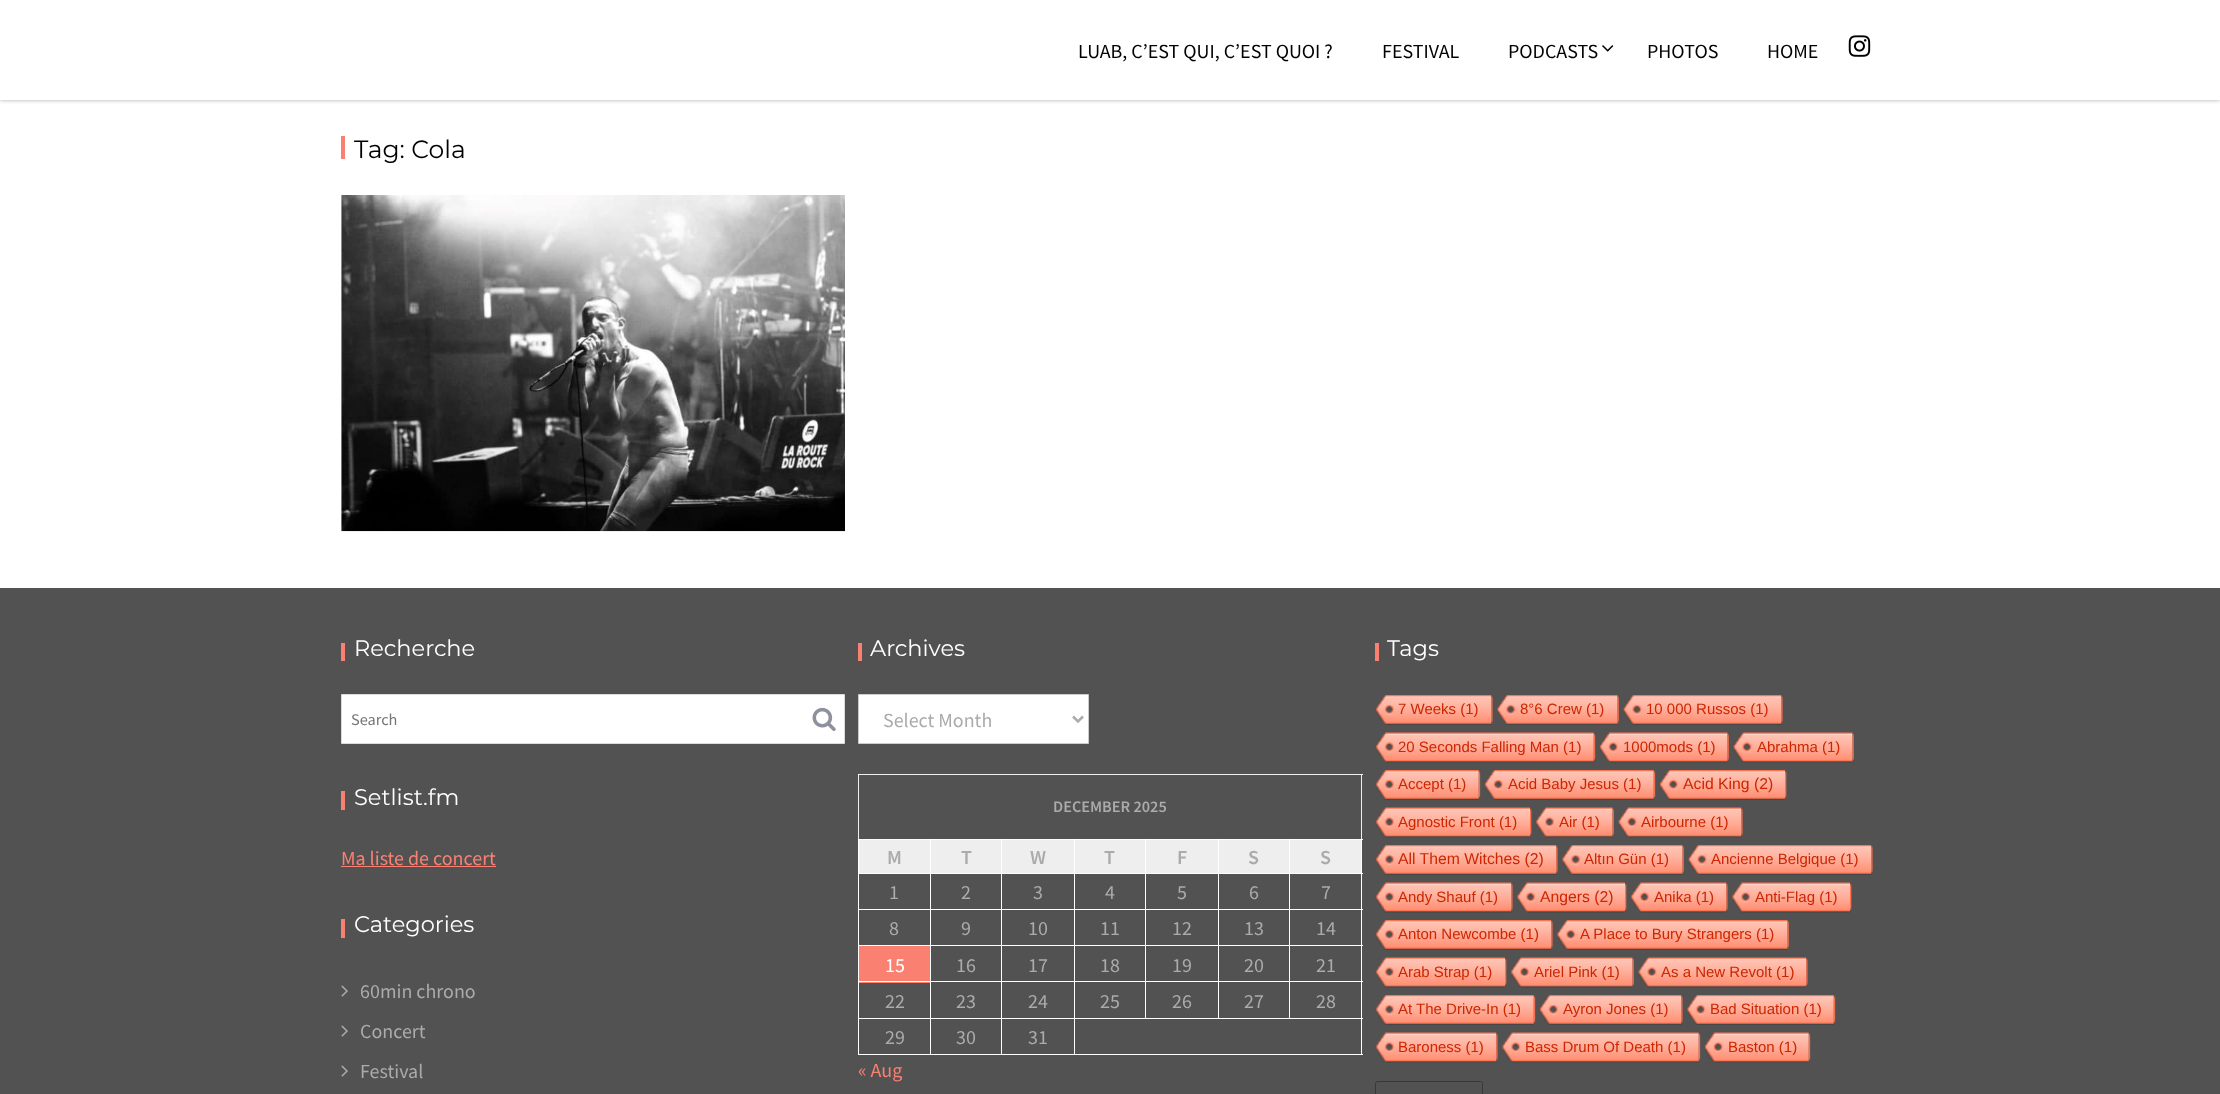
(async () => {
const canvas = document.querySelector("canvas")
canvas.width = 2220
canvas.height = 1094
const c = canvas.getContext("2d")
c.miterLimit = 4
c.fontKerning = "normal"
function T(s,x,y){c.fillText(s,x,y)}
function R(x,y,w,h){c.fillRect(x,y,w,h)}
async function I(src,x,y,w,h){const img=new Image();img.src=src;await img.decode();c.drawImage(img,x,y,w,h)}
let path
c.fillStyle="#fff"
R(0,0,2220,1094)
c.save()
c.beginPath()
c.rect(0,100,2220,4)
c.clip()
c.fillStyle="#aaa"
c.filter="blur(2px)"
c.beginPath()
c.rect(0,0,2220,100)
c.fill()
c.filter="none"
c.restore()
c.font="20px Source Sans Pro"
c.fillStyle="#000"
T("LUAB, C’EST QUI, C’EST QUOI ?",1078,58)
T("FESTIVAL",1382,58)
T("PODCASTS",1508,58)
await I("1.png",1602,45,12,7)
T("PHOTOS",1647,58)
T("HOME",1767,58)
await I("2.png",1848,35,23,22)
c.fillStyle="#fa8072"
R(341,136,4,23)
c.font="25px Montserrat"
c.fillStyle="#000"
T("Tag: Cola",354,158)
await I("3.png",341,195,504,337)
c.fillStyle="#525252"
R(0,588,2220,506)
c.fillStyle="#fdfdfd"
R(930,873,1,182)
R(1001,873,1,182)
R(1074,873,1,182)
R(1145,873,1,146)
R(1218,873,1,146)
R(1289,873,1,146)
R(858,839,505,1)
c.fillStyle="#eee"
R(858,774,1,65)
R(1361,774,1,65)
c.fillStyle="#fa8072"
R(341,643,4,18)
c.font="22.5px Montserrat"
c.fillStyle="#fff"
T("Recherche",354,656)
c.beginPath()
c.rect(341.5,694.5,503,49)
c.fill()
c.strokeStyle="#dbdbdb"
c.stroke()
c.font="16.25px Source Sans Pro"
c.fillStyle="#757575"
T("Search",351,725)
await I("4.png",812,707,24,24)
c.fillStyle="#fa8072"
R(341,791,4,19)
c.font="22.5px Montserrat"
c.fillStyle="#fff"
T("Setlist.fm",354,805)
c.font="20px Source Sans Pro"
c.fillStyle="#fa8072"
T("Ma liste de concert",341,865)
R(341,866,155,1)
R(341,919,4,19)
c.font="22.5px Montserrat"
c.fillStyle="#fff"
T("Categories",354,932)
await I("5.png",341,985,7,12)
c.font="20px Source Sans Pro"
c.fillStyle="#ababab"
T("60min chrono",360,998)
await I("5.png",341,1025,7,12)
T("Concert",360,1038)
await I("5.png",341,1065,7,12)
T("Festival",360,1078)
c.fillStyle="#fa8072"
R(858,643,4,18)
c.font="22.5px Montserrat"
c.fillStyle="#fff"
T("Archives",870,656)
c.beginPath()
c.rect(858.5,694.5,230,49)
c.fill()
c.strokeStyle="#ccc"
c.stroke()
path = new Path2D("M1073 716.5l5 5l5-5")
c.strokeStyle="#ababab"
c.lineWidth=2.5
c.stroke(path)
c.font="20px Source Sans Pro"
c.fillStyle="#ababab"
T("Select Month",883,727)
c.fillStyle="#eee"
R(858,774,505,1)
c.fillStyle="#fdfdfd"
R(858,774,1,1)
R(1361,774,1,1)
c.font="600 16.25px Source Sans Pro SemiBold"
c.fillStyle="#ababab"
T("DECEMBER 2025",1053,812)
c.fillStyle="#eee"
R(859,840,71,33)
c.fillStyle="#fff"
R(859,873,504,1)
R(930,839,1,35)
c.font="600 20px Source Sans Pro SemiBold"
c.fillStyle="#ababab"
T("M",887,864)
c.fillStyle="#eee"
R(931,840,143,33)
c.fillStyle="#fff"
R(1001,839,1,35)
c.fillStyle="#ababab"
T("T",961,864)
c.fillStyle="#fff"
R(1074,839,1,35)
c.fillStyle="#ababab"
T("W",1030,864)
c.fillStyle="#eee"
R(1075,840,70,33)
c.fillStyle="#fff"
R(1145,839,1,35)
c.fillStyle="#ababab"
T("T",1104,864)
c.fillStyle="#eee"
R(1146,840,72,33)
c.fillStyle="#fff"
R(1218,839,1,35)
c.fillStyle="#ababab"
T("F",1177,864)
c.fillStyle="#eee"
R(1219,840,70,33)
c.fillStyle="#fff"
R(1289,839,1,35)
c.fillStyle="#ababab"
T("S",1248,864)
c.fillStyle="#eee"
R(1290,840,71,33)
c.fillStyle="#ababab"
T("S",1320,864)
c.font="20px Source Sans Pro"
T("1",889,899)
T("2",961,899)
T("3",1033,899)
T("4",1105,899)
T("5",1177,899)
T("6",1249,899)
T("7",1321,899)
c.fillStyle="#fff"
R(858,909,505,1)
R(858,945,505,1)
R(858,1018,505,1)
R(1361,1018,1,37)
R(858,1054,505,1)
R(858,981,1,74)
R(858,945,1,38)
R(858,839,1,107)
c.fillStyle="#ababab"
T("8",889,935)
T("9",961,935)
T("10",1028,935)
T("11",1100,935)
T("12",1172,935)
T("13",1244,935)
c.fillStyle="#fff"
R(930,981,433,1)
R(1361,981,1,38)
R(1361,945,1,38)
R(1361,839,1,107)
c.fillStyle="#ababab"
T("14",1316,935)
c.fillStyle="#fa8072"
R(859,946,71,37)
c.fillStyle="#fffefe"
R(859,981,71,1)
c.fillStyle="#fff"
T("15",885,972)
c.fillStyle="#ababab"
T("16",956,972)
T("17",1028,972)
T("18",1100,972)
T("19",1172,972)
T("20",1244,972)
T("21",1316,972)
T("22",885,1008)
T("23",956,1008)
T("24",1028,1008)
T("25",1100,1008)
T("26",1172,1008)
T("27",1244,1008)
T("28",1316,1008)
T("29",885,1044)
T("30",956,1044)
T("31",1028,1044)
c.fillStyle="#fa8072"
T("« Aug",858,1077)
R(1375,643,4,18)
c.font="22.5px Montserrat"
c.fillStyle="#fff"
T("Tags",1387,656)
await I("6.png",1376,695,116,30)
c.font="15px Liberation Sans"
c.fillStyle="#cd2600"
T("7 Weeks (1)",1398,714)
await I("7.png",1491,696,2,28)
await I("8.png",1497,695,121,30)
T("8°6 Crew (1)",1520,714)
await I("9.png",1617,696,2,27)
await I("10.png",1623,695,159,30)
T("10 000 Russos (1)",1646,714)
await I("7.png",1781,696,2,28)
await I("11.png",1376,732,218,31)
T("20 Seconds Falling Man (1)",1398,752)
await I("12.png",1593,733,3,28)
await I("13.png",1599,732,129,31)
T("1000mods (1)",1623,752)
await I("14.png",1727,733,2,28)
await I("15.png",1733,732,120,31)
T("Abrahma (1)",1757,752)
await I("14.png",1852,733,2,28)
await I("16.png",1376,770,103,30)
T("Accept (1)",1398,789)
await I("17.png",1478,771,3,28)
await I("18.png",1484,770,170,30)
T("Acid Baby Jesus (1)",1508,789)
await I("17.png",1653,771,3,28)
await I("19.png",1659,770,126,30)
c.font="15.75px Liberation Sans"
T("Acid King (2)",1683,789)
await I("20.png",1785,771,2,28)
await I("21.png",1376,807,154,31)
c.font="15px Liberation Sans"
T("Agnostic Front (1)",1398,827)
await I("22.png",1530,808,2,28)
await I("23.png",1536,807,77,31)
T("Air (1)",1559,827)
await I("14.png",1612,808,2,28)
await I("24.png",1618,807,124,31)
T("Airbourne (1)",1641,827)
await I("25.png",1741,808,2,28)
await I("26.png",1376,845,181,30)
c.font="15.75px Liberation Sans"
T("All Them Witches (2)",1398,864)
await I("7.png",1556,846,2,28)
await I("27.png",1562,845,121,30)
c.font="15px Liberation Sans"
T("Altın Gün (1)",1584,864)
await I("9.png",1682,846,2,27)
await I("28.png",1688,845,184,30)
T("Ancienne Belgique (1)",1711,864)
await I("7.png",1871,846,2,28)
await I("29.png",1376,882,136,31)
T("Andy Shauf (1)",1398,902)
await I("25.png",1511,883,2,28)
await I("30.png",1517,882,108,31)
c.font="15.75px Liberation Sans"
T("Angers (2)",1540,902)
await I("22.png",1625,883,2,28)
await I("31.png",1631,882,96,31)
c.font="15px Liberation Sans"
T("Anika (1)",1654,902)
await I("25.png",1726,883,2,28)
await I("32.png",1732,882,118,31)
T("Anti-Flag (1)",1755,902)
await I("22.png",1850,883,2,28)
await I("33.png",1376,920,176,30)
T("Anton Newcombe (1)",1398,939)
await I("7.png",1551,921,2,28)
await I("34.png",1557,920,231,30)
T("A Place to Bury Strangers (1)",1580,939)
await I("9.png",1787,921,2,27)
await I("35.png",1376,957,129,31)
T("Arab Strap (1)",1398,977)
await I("22.png",1505,958,2,28)
await I("36.png",1511,957,122,31)
T("Ariel Pink (1)",1534,977)
await I("14.png",1632,958,2,28)
await I("37.png",1638,957,169,31)
T("As a New Revolt (1)",1661,977)
await I("25.png",1806,958,2,28)
await I("38.png",1376,995,158,30)
T("At The Drive-In (1)",1398,1014)
await I("17.png",1533,996,3,28)
await I("39.png",1539,995,143,30)
T("Ayron Jones (1)",1563,1014)
await I("7.png",1681,996,2,28)
await I("40.png",1687,995,147,30)
T("Bad Situation (1)",1710,1014)
await I("17.png",1833,996,3,28)
await I("41.png",1376,1032,121,31)
T("Baroness (1)",1398,1052)
await I("25.png",1496,1033,2,28)
await I("42.png",1502,1032,197,31)
T("Bass Drum Of Death (1)",1525,1052)
await I("12.png",1698,1033,3,28)
await I("43.png",1704,1032,105,31)
T("Baston (1)",1728,1052)
await I("12.png",1808,1033,3,28)
c.beginPath()
c.roundRect(1375.5,1081.5,107,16,2)
c.strokeStyle="#393939"
c.lineWidth=1
c.stroke()
})()
